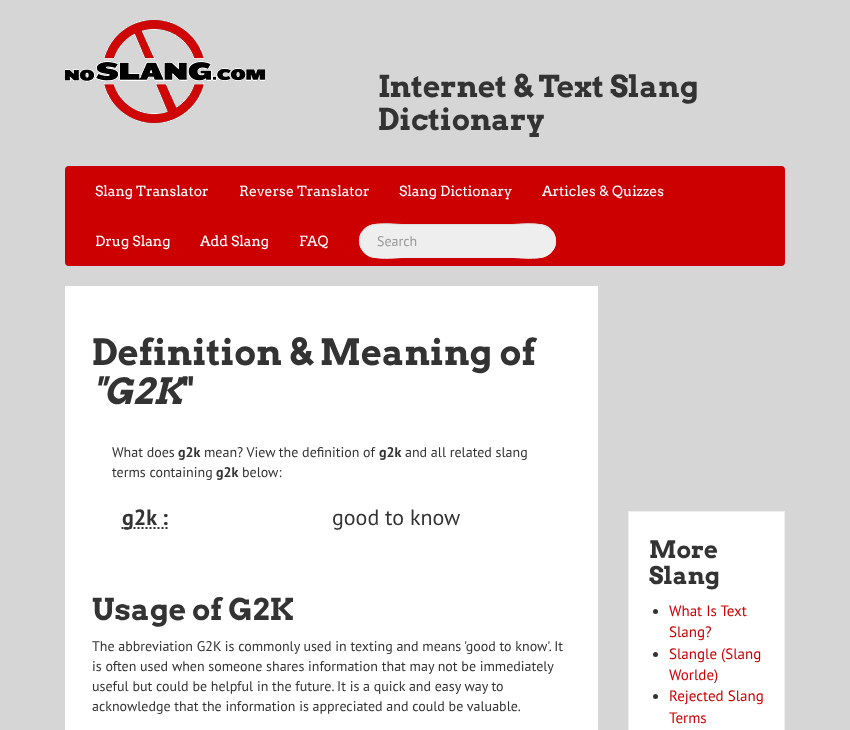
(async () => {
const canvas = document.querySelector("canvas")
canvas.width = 850
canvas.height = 730
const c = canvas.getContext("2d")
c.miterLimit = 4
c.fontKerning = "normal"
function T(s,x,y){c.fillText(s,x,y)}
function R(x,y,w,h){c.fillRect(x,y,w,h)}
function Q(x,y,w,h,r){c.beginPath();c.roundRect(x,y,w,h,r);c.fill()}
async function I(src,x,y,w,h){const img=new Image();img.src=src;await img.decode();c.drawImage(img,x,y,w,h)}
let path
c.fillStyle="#d6d6d6"
R(0,0,850,730)
await I("1.png",65,20,200,103)
c.font="bold 30px Arvo"
c.fillStyle="#333"
T("Internet & Text Slang",378,97)
T("Dictionary",378,130)
c.fillStyle="#c00"
Q(65,166,720,100,4)
c.font="14px Arvo"
c.fillStyle="#fff"
T("Slang Translator",95,196)
T("Reverse Translator",239,196)
T("Slang Dictionary",399,196)
T("Articles & Quizzes",542,196)
T("Drug Slang",95,246)
T("Add Slang",200,246)
T("FAQ",299,246)
c.fillStyle="#eee"
Q(359,224,197,34,17)
path = new Path2D("M550.5 229.5c4.5 4 6 10.5 4.5 16.5c-5.5 17-31.5 11.5-43 11.5h-109c-7.5 0-29.5 4-38.5-5")
c.strokeStyle="#eee"
c.stroke(path)
path = new Path2D("M364.5 252.5c-4.5-4-6-10.5-4.5-16.5c5.5-17 31.5-11.5 43-11.5h109c7.5 0 29.5-4 38.5 5")
c.strokeStyle="#ddd"
c.stroke(path)
c.font="14px PT Sans"
c.fillStyle="#999"
T("Search",377,246)
c.fillStyle="#fff"
R(65,286,533,444)
c.font="bold 36px Arvo"
c.fillStyle="#333"
T("Definition & Meaning of",92,365)
c.font="italic bold 36px Arvo"
T("\"G2K",92,404)
c.font="bold 36px Arvo"
T("\"",182,404)
c.font="14px PT Sans"
T("What does",112,457)
c.font="bold 14px PT Sans"
T("g2k",178,457)
c.font="14px PT Sans"
T("mean? View the definition of",204,457)
c.font="bold 14px PT Sans"
T("g2k",379,457)
c.font="14px PT Sans"
T("and all related slang",405,457)
T("terms containing",112,477)
c.font="bold 14px PT Sans"
T("g2k",216,477)
c.font="14px PT Sans"
T("below:",242,477)
path = new Path2D("M121.5 528h46")
c.strokeStyle="#333"
c.lineWidth=2
c.setLineDash([2,2])
c.stroke(path)
c.font="bold 22px PT Sans"
T("g2k :",122,525)
c.font="22px PT Sans"
T("good to know",332,525)
c.font="bold 30px Arvo"
T("Usage of G2K",92,620)
c.font="14px PT Sans"
T("The abbreviation G2K is commonly used in texting and means 'good to know'. It",92,651)
T("is often used when someone shares information that may not be immediately",92,671)
T("useful but could be helpful in the future. It is a quick and easy way to",92,691)
T("acknowledge that the information is appreciated and could be valuable.",92,711)
c.fillStyle="#fff"
c.beginPath()
c.rect(628.5,511.5,156,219)
c.fill()
c.strokeStyle="#eee"
c.lineWidth=1
c.setLineDash([])
c.stroke()
c.font="bold 24px Arvo"
c.fillStyle="#333"
T("More",649,558)
T("Slang",649,584)
c.beginPath()
c.arc(655.5,611.5,2.5,0,7)
c.fill()
c.font="15px PT Sans"
c.fillStyle="#c00"
T("What Is Text",669,616)
T("Slang?",669,637)
c.fillStyle="#333"
c.beginPath()
c.arc(655.5,654.5,2.5,0,7)
c.fill()
c.fillStyle="#c00"
T("Slangle (Slang",669,659)
T("Worlde)",669,680)
c.fillStyle="#333"
c.beginPath()
c.arc(655.5,696.5,2.5,0,7)
c.fill()
c.fillStyle="#c00"
T("Rejected Slang",669,701)
T("Terms",669,723)
})()
